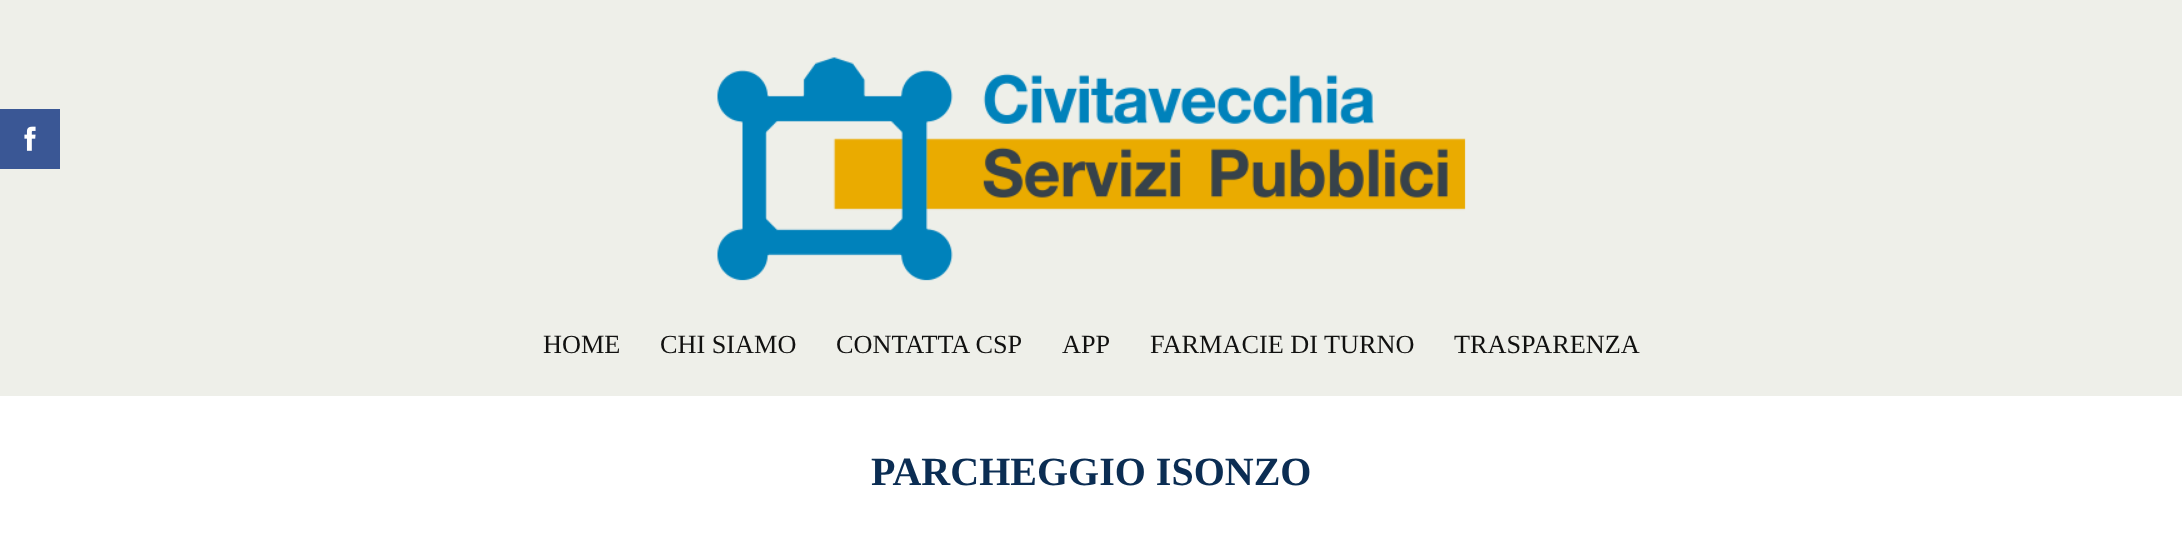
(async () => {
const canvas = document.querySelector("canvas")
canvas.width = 2182
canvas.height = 543
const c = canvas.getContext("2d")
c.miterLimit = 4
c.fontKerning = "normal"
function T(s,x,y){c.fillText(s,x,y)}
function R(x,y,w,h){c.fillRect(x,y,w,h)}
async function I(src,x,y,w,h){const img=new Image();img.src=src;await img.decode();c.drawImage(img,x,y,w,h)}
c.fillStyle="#eeefe9"
R(0,0,2182,543)
c.fillStyle="#3a5795"
R(0,109,60,60)
await I("1.png",24,126,12,25)
await I("2.png",717,57,749,224)
c.font="26.25px Liberation Serif"
c.fillStyle="#111110"
T("HOME",543,353)
T("CHI SIAMO",660,353)
T("CONTATTA CSP",836,353)
T("APP",1062,353)
T("FARMACIE DI TURNO",1150,353)
T("TRASPARENZA",1454,353)
c.fillStyle="#fff"
R(0,396,2182,147)
c.font="bold 40px Liberation Serif"
c.fillStyle="#0b2d53"
T("PARCHEGGIO ISONZO",871,485)
})()
